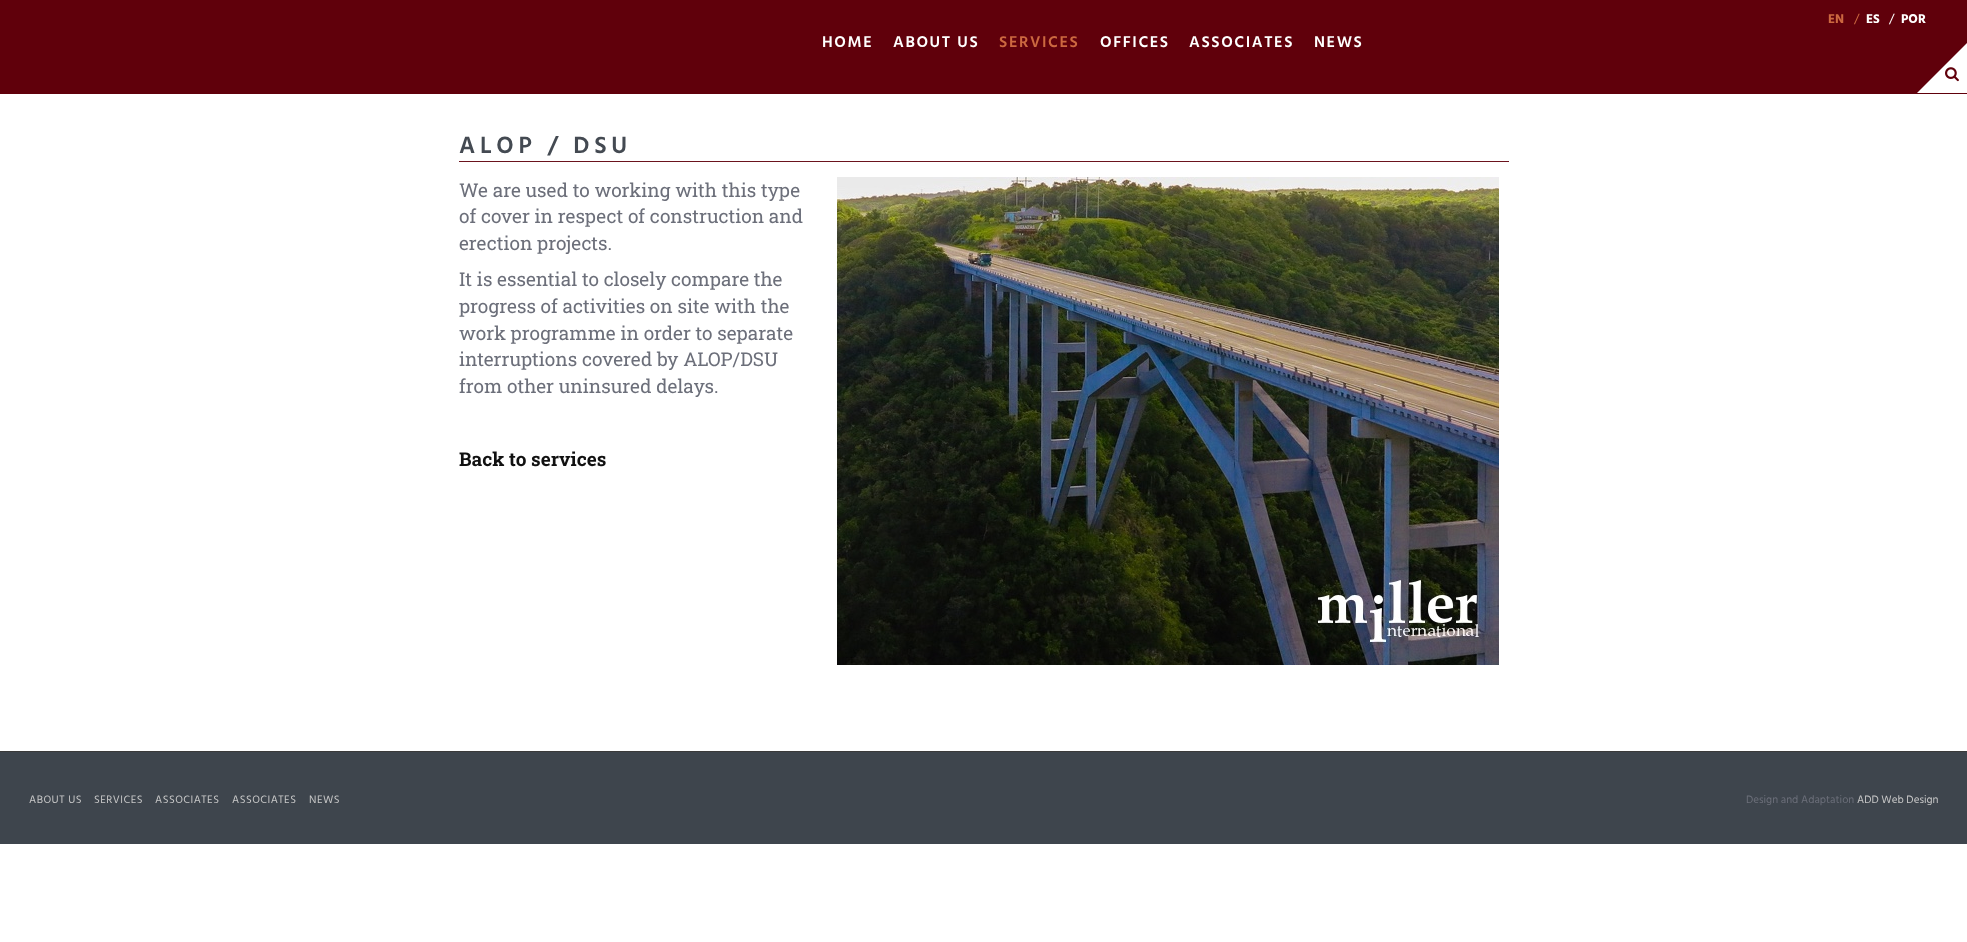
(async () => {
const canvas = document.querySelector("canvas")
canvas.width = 1967
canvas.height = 942
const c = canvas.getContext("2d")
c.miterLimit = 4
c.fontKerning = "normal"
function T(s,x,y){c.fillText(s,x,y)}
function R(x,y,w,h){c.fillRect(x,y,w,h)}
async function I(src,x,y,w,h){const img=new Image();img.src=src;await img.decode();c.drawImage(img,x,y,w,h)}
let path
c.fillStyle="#fff"
R(0,0,1967,942)
c.fillStyle="#60000b"
R(0,0,1967,94)
c.font="bold 13px Hind"
c.fillStyle="#cc6840"
T("EN",1828,23)
c.font="13px Hind"
T("/",1854,23)
c.font="bold 13px Hind"
c.fillStyle="#fff"
T("ES",1866,23)
c.font="13px Hind"
T("/",1889,23)
c.font="bold 13px Hind"
T("POR",1901,23)
c.letterSpacing="1.6px"
c.font="600 16px Hind"
T("HOME",822,47)
T("ABOUT US",893,47)
c.fillStyle="#cc6840"
T("SERVICES",999,47)
c.fillStyle="#fff"
T("OFFICES",1100,47)
T("ASSOCIATES",1189,47)
T("NEWS",1314,47)
path = new Path2D("M1967 43v50h-50z")
c.fill(path)
await I("1.png",1945,67,14,15)
c.fillStyle="#6b131d"
R(459,161,1050,1)
c.letterSpacing="4.75px"
c.font="600 24px Hind"
c.fillStyle="#444a52"
T("ALOP / DSU",459,153)
c.letterSpacing="0px"
c.font="19px Roboto Slab"
c.fillStyle="#6c6f7a"
T("We are used to working with this type",459,197)
T("of cover in respect of construction and",459,223)
T("erection projects.",459,250)
T("It is essential to closely compare the",459,286)
T("progress of activities on site with the",459,313)
T("work programme in order to separate",459,340)
T("interruptions covered by ALOP/DSU",459,366)
T("from other uninsured delays.",459,393)
c.font="bold 19px Roboto Slab"
c.fillStyle="#111"
T("Back to services",459,466)
await I("2.png",837,177,662,488)
c.fillStyle="#3e454d"
R(0,752,1967,92)
c.fillStyle="#3a3a3a"
R(0,751,1967,1)
c.letterSpacing="0.5px"
c.font="11px Hind"
c.fillStyle="#c8c8c8"
T("ABOUT US",29,803)
T("SERVICES",94,803)
T("ASSOCIATES",155,803)
T("ASSOCIATES",232,803)
T("NEWS",309,803)
c.letterSpacing="0px"
c.fillStyle="#6c6f7a"
T("Design and Adaptation",1746,803)
c.fillStyle="#c8c8c8"
T("ADD Web Design",1857,803)
})()
